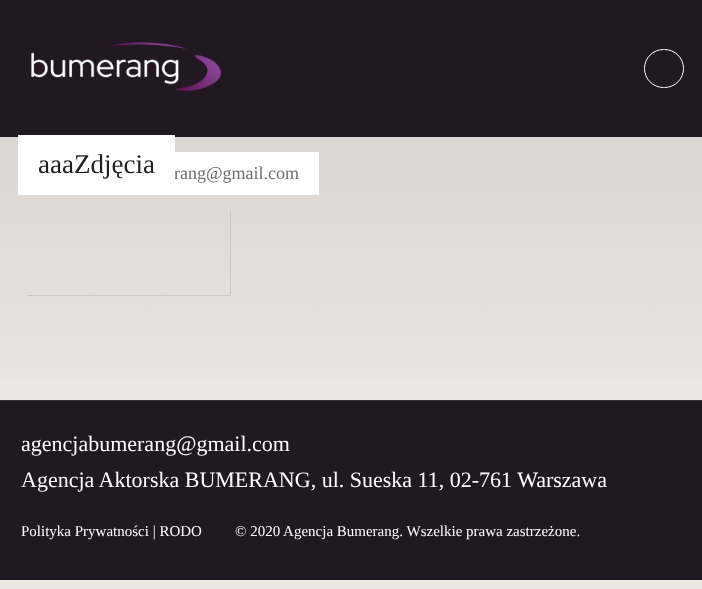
(async () => {
const canvas = document.querySelector("canvas")
canvas.width = 702
canvas.height = 589
const c = canvas.getContext("2d")
c.miterLimit = 4
c.fontKerning = "normal"
function T(s,x,y){c.fillText(s,x,y)}
function R(x,y,w,h){c.fillRect(x,y,w,h)}
async function I(src,x,y,w,h){const img=new Image();img.src=src;await img.decode();c.drawImage(img,x,y,w,h)}
c.fillStyle="#ede7e3"
R(0,0,702,589)
await I("1.png",0,137,702,240)
c.fillStyle="#221821"
R(0,0,702,137)
await I("2.png",31,42,190,49)
c.beginPath()
c.roundRect(644.5,49.5,39,38,19)
c.strokeStyle="#fff"
c.stroke()
c.fillStyle="#cec8c4"
R(230,210,1,86)
R(28,295,203,1)
c.fillStyle="#fff"
R(175,152,144,43)
c.font="18px Liberation Serif"
c.fillStyle="#706c70"
T("rang@gmail.com",174,179)
c.fillStyle="#fff"
R(18,135,157,60)
c.font="27px Liberation Serif"
c.fillStyle="#222122"
T("aaaZdjęcia",38,173)
c.fillStyle="#221821"
R(0,401,702,179)
c.fillStyle="#382f37"
R(0,400,702,1)
c.font="22px Liberation Serif"
c.fillStyle="#fff"
T("agencjabumerang@gmail.com",21,451)
T("Agencja Aktorska BUMERANG, ul. Sueska 11, 02-761 Warszawa",21,487)
c.font="15px Liberation Serif"
T("Polityka Prywatności | RODO",21,536)
T("© 2020 Agencja Bumerang. Wszelkie prawa zastrzeżone.",235,536)
})()
